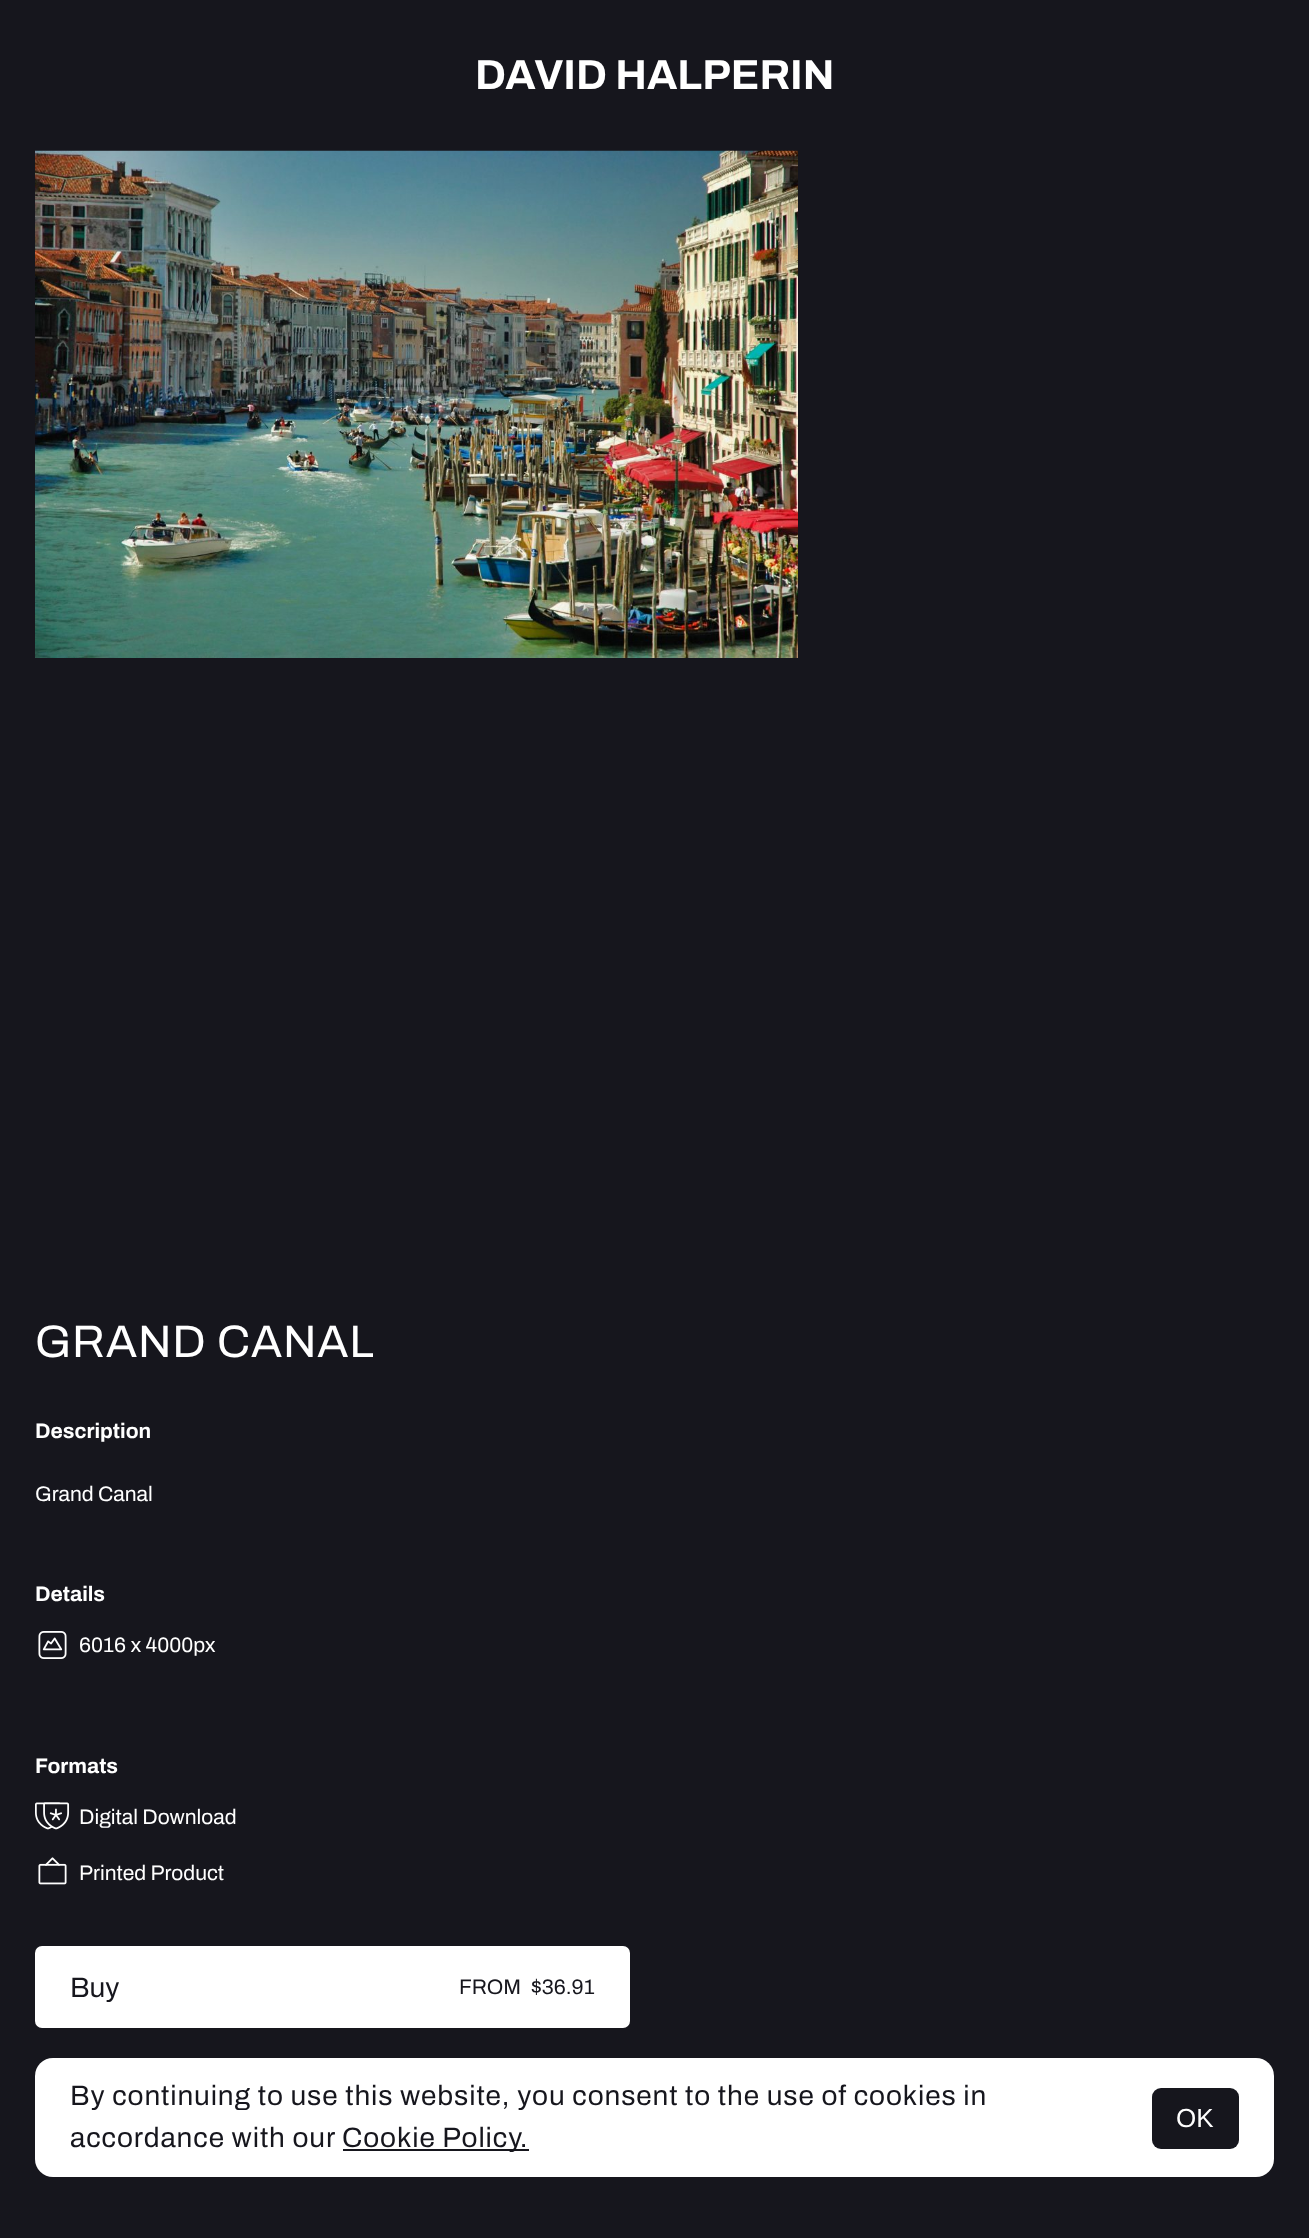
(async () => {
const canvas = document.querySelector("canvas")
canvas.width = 1309
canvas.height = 2238
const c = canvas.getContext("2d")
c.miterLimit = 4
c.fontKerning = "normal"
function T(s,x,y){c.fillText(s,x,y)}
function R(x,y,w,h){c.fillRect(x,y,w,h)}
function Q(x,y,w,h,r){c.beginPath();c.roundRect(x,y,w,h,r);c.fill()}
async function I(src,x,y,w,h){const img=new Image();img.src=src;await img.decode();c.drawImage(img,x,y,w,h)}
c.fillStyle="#16161d"
R(0,0,1309,2238)
c.font="bold 42px Archivo"
c.fillStyle="#fff"
T("DAVID HALPERIN",475,89)
await I("1.png",35,150,763,508)
c.letterSpacing="0.88px"
c.font="45.5px Archivo"
T("GRAND CANAL",35,1357)
c.letterSpacing="0px"
c.font="bold 21px Archivo"
T("Description",35,1438)
c.font="21px Archivo"
T("Grand Canal",35,1501)
c.font="bold 21px Archivo"
T("Details",35,1601)
await I("2.png",38,1631,29,28)
c.font="21px Archivo"
T("6016 x 4000px",79,1652)
c.font="bold 21px Archivo"
T("Formats",35,1773)
await I("3.png",35,1802,35,28)
c.font="21px Archivo"
T("Digital Download",79,1824)
await I("4.png",38,1857,29,28)
T("Printed Product",79,1880)
Q(35,1946,595,82,7)
c.font="28px Archivo"
c.fillStyle="#16161d"
T("Buy",70,1997)
c.font="21px Archivo"
T("FROM",459,1994)
T("$36.91",531,1994)
c.fillStyle="#fff"
Q(35,2058,1239,119,18)
c.letterSpacing="0.88px"
c.font="28px Archivo"
c.fillStyle="#16161d"
T("By continuing to use this website, you consent to the use of cookies in",70,2105)
T("accordance with our",70,2147)
R(343,2149,186,2)
T("Cookie Policy.",342,2147)
Q(1152,2088,87,61,9)
c.letterSpacing="0px"
c.font="26px Liberation Sans"
c.fillStyle="#fff"
T("OK",1176,2127)
})()
